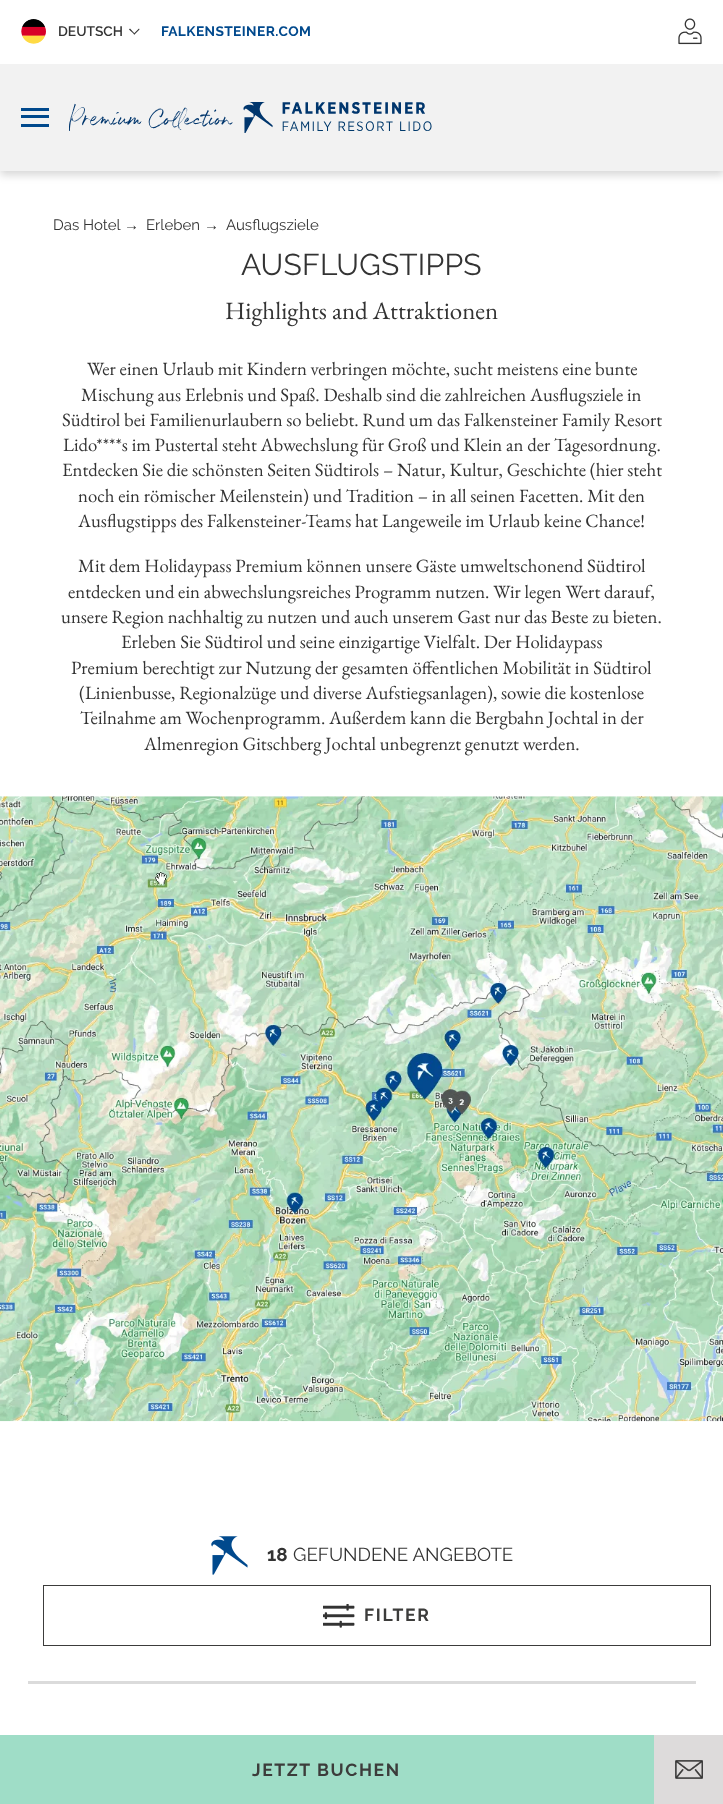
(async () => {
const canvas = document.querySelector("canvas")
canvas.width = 723
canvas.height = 1804
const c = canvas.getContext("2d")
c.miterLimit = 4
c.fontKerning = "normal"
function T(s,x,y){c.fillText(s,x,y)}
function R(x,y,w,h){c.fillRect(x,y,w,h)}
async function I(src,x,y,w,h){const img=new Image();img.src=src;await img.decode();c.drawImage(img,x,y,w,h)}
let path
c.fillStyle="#fff"
R(0,0,723,1804)
c.fillStyle="#00000029"
c.filter="blur(4px)"
c.beginPath()
c.rect(0,4,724,171)
c.fill()
c.filter="none"
c.fillStyle="#f2f2f2"
R(0,64,723,107)
c.fillStyle="#fff"
R(0,0,723,64)
await I("1.png",21,19,25,25)
c.font="600 13.75px Raleway"
c.fillStyle="#333"
T("DEUTSCH",58,36)
path = new Path2D("M139 28.5l.5 1l-5 5l-1-.5z")
c.fill(path)
path = new Path2D("M130 28.5l5 5.5l-.5 .5l-5.5-5z")
c.fill(path)
c.letterSpacing="0.4px"
c.font="bold 13.75px Raleway"
c.fillStyle="#00498d"
T("FALKENSTEINER.COM",161,36)
await I("2.png",678,18,24,27)
R(21,108,28,3)
R(21,115,28,3)
R(21,124,28,3)
await I("3.png",69,102,363,31)
c.letterSpacing="0px"
c.font="15px Raleway"
c.fillStyle="#333"
T("Das Hotel",53,230)
c.font="15px Liberation Sans"
T("→",124,230)
c.font="15px Raleway"
T("Erleben",146,230)
c.font="15px Liberation Sans"
T("→",204,230)
c.font="15px Raleway"
T("Ausflugsziele",226,230)
c.letterSpacing="0.25px"
c.font="30px Raleway"
T("AUSFLUGSTIPPS",241,275)
c.letterSpacing="0px"
c.font="25px EB Garamond"
T("Highlights and Attraktionen",225,319)
c.font="18.75px EB Garamond"
T("Wer einen Urlaub mit Kindern verbringen möchte, sucht meistens eine bunte",87,375)
T("Mischung aus Erlebnis und Spaß. Deshalb sind die zahlreichen Ausflugsziele in",81,401)
T("Südtirol bei Familienurlaubern so beliebt. Rund um das Falkensteiner Family Resort",62,426)
T("Lido****s im Pustertal steht Abwechslung für Groß und Klein an der Tagesordnung.",63,451)
T("Entdecken Sie die schönsten Seiten Südtirols – Natur, Kultur, Geschichte (hier steht",62,476)
T("noch ein römischer Meilenstein) und Tradition – in all seinen Facetten. Mit den",78,502)
T("Ausflugstipps des Falkensteiner-Teams hat Langeweile im Urlaub keine Chance!",78,527)
T("Mit dem Holidaypass Premium können unsere Gäste umweltschonend Südtirol",78,572)
T("entdecken und ein abwechslungsreiches Programm nutzen. Wir legen Wert darauf,",68,598)
T("unsere Region nachhaltig zu nutzen und auch unserem Gast nur das Beste zu bieten.",61,623)
T("Erleben Sie Südtirol und seine einzigartige Vielfalt. Der Holidaypass",121,648)
c.wordSpacing="0.1px"
T("Premium berechtigt zur Nutzung der gesamten öffentlichen Mobilität in Südtirol",71,674)
c.wordSpacing="0px"
T("(Linienbusse, Regionalzüge und diverse Aufstiegsanlagen), sowie die kostenlose",79,699)
T("Teilnahme am Wochenprogramm. Außerdem kann die Bergbahn Jochtal in der",80,724)
T("Almenregion Gitschberg Jochtal unbegrenzt genutzt werden.",144,750)
await I("4.png",0,796,723,626)
c.fillStyle="#dbdbdb"
R(28,1681,668,3)
await I("5.png",211,1536,37,39)
c.font="bold 18.75px Raleway"
c.fillStyle="#333"
T("18",267,1561)
c.font="18.75px Raleway"
T("GEFUNDENE ANGEBOTE",293,1561)
c.strokeStyle="#3c3c3b"
c.strokeRect(43.5,1585.5,667,60)
await I("6.png",323,1604,32,24)
c.letterSpacing="1.75px"
c.font="bold 17.5px Raleway"
c.fillStyle="#3c3c3b"
T("FILTER",364,1621)
c.fillStyle="#9fddc7"
R(0,1735,654,69)
c.letterSpacing="1.6px"
c.fillStyle="#3c3c3b"
T("JETZT BUCHEN",252,1776)
c.fillStyle="#dddbdb"
R(654,1735,69,69)
await I("7.png",675,1760,28,19)
})()
